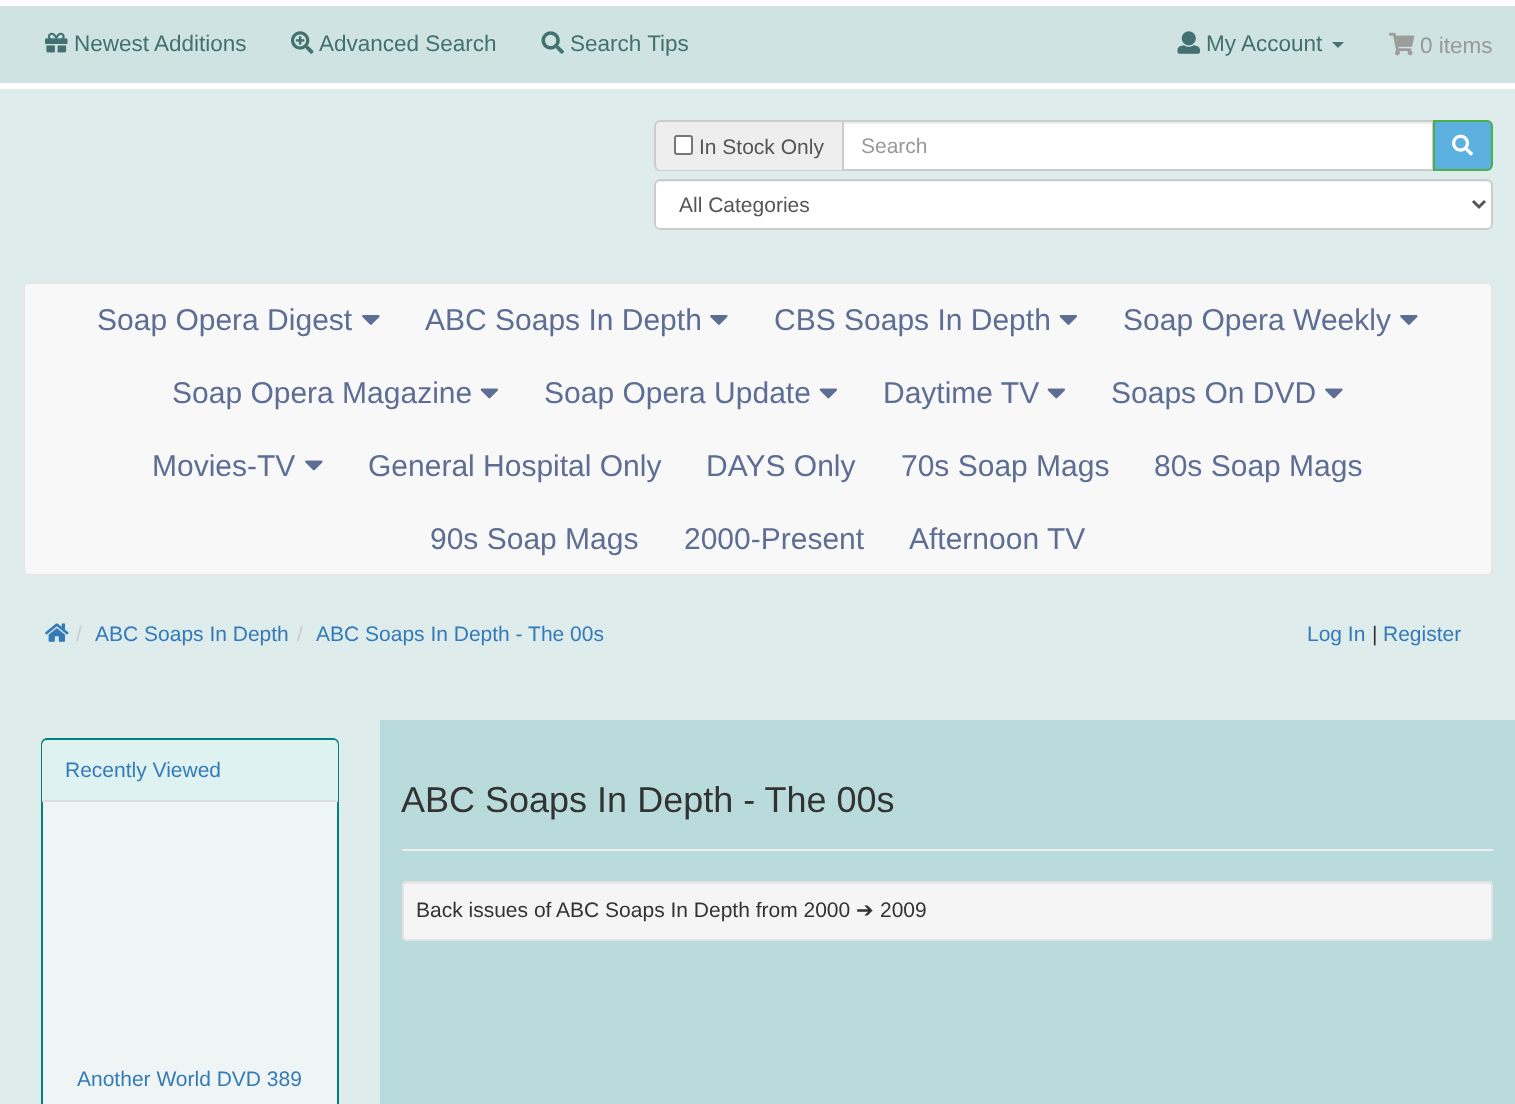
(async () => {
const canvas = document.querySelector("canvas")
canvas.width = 1515
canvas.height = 1104
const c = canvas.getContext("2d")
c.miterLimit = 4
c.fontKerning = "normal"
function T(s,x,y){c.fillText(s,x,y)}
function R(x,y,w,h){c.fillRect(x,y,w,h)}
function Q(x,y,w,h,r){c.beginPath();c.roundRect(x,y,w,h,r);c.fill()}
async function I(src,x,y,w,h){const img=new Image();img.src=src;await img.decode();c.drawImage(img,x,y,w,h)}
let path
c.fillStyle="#dfecec"
R(0,0,1515,1104)
c.fillStyle="#cfe3e3"
R(0,6,1515,77)
c.fillStyle="#fff"
R(0,0,1515,6)
R(0,83,1515,6)
await I("1.png",45,32,23,21)
c.font="22.5px Liberation Sans"
c.fillStyle="#437070"
T("Newest Additions",74,51)
await I("2.png",291,31,23,23)
T("Advanced Search",319,51)
await I("3.png",541,31,23,23)
T("Search Tips",570,51)
await I("4.png",1177,31,23,23)
T("My Account",1206,51)
path = new Path2D("M1332 42h12l-6 6z")
c.fill(path)
await I("5.png",1389,32,26,24)
c.fillStyle="#999"
T("0 items",1420,53)
c.fillStyle="#eee"
c.beginPath()
c.roundRect(654,120,188,51,[6,0,0,6])
c.fill()
c.fillStyle="#ccc"
path = new Path2D("M660 120h182v51h-182c-3 0-6-3-6-6v-39c0-3 3-6 6-6zm0 2h182v48h-182c-2 0-4-3-4-5v-39c0-2 2-4 4-4z")
c.fill(path,"evenodd")
c.fillStyle="#fff"
c.beginPath()
c.roundRect(675,136,17,18,2)
c.fill()
c.strokeStyle="#767676"
c.lineWidth=2
c.stroke()
c.font="21px Liberation Sans"
c.fillStyle="#555"
T("In Stock Only",699,154)
c.fillStyle="#fff"
R(844,124,588,45)
c.fillStyle="#ececec"
R(843,122,590,2)
c.strokeStyle="#ccc"
c.strokeRect(843,121,590,49)
c.fillStyle="#999"
T("Search",861,153)
c.fillStyle="#5cb0df"
c.beginPath()
c.roundRect(1434,121,58,49,[0,5,5,0])
c.fill()
c.strokeStyle="#4cae4c"
c.stroke()
await I("6.png",1452,134,21,22)
c.fillStyle="#fff"
Q(654,179,839,51,6)
c.fillStyle="#ececec"
path = new Path2D("M660 182h826c3 0 5 2 5 4v-1c0-3-2-5-5-5h-825c-3 0-5 2-5 5v1c0-2 2-4 4-4z")
c.fill(path)
c.beginPath()
c.roundRect(655,180,837,49,5)
c.strokeStyle="#ccc"
c.stroke()
path = new Path2D("M1473 201l6 6l6-6")
c.strokeStyle="#555"
c.lineWidth=3
c.stroke(path)
c.fillStyle="#555"
T("All Categories",679,212)
c.fillStyle="#f8f8f8"
c.beginPath()
c.roundRect(24,283,1468,292,5)
c.fill()
c.strokeStyle="#e7e7e7"
c.lineWidth=2
c.stroke()
c.font="30px Liberation Sans"
c.fillStyle="#5d6d93"
T("Soap Opera Digest",97,330)
await I("7.png",362,315,18,10)
T("ABC Soaps In Depth",425,330)
await I("7.png",710,315,18,10)
T("CBS Soaps In Depth",774,330)
await I("8.png",1059,315,18,10)
T("Soap Opera Weekly",1123,330)
await I("7.png",1400,315,18,10)
T("Soap Opera Magazine",172,403)
await I("9.png",480,388,19,11)
T("Soap Opera Update",544,403)
await I("9.png",819,388,19,11)
T("Daytime TV",883,403)
await I("9.png",1047,388,19,11)
T("Soaps On DVD",1111,403)
await I("10.png",1325,388,18,11)
T("Movies-TV",152,476)
await I("10.png",305,460,18,11)
T("General Hospital Only",368,476)
T("DAYS Only",706,476)
T("70s Soap Mags",901,476)
T("80s Soap Mags",1154,476)
T("90s Soap Mags",430,549)
T("2000-Present",684,549)
T("Afternoon TV",909,549)
await I("11.png",45,623,24,19)
c.font="21px Liberation Sans"
c.fillStyle="#ccc"
T("/",76,641)
c.fillStyle="#337ab7"
T("ABC Soaps In Depth",95,641)
c.fillStyle="#ccc"
T("/",297,641)
c.fillStyle="#337ab7"
T("ABC Soaps In Depth - The 00s",316,641)
T("Log In",1307,641)
c.fillStyle="#333"
T("|",1372,641)
c.fillStyle="#337ab7"
T("Register",1383,641)
c.fillStyle="#eff5f5"
c.beginPath()
c.roundRect(42,739,296,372,5)
c.fill()
c.strokeStyle="#008080"
c.stroke()
c.fillStyle="#def2f2"
c.beginPath()
c.roundRect(42,740,296,61,[5,5,0,0])
c.fill()
c.fillStyle="#ddd"
R(42,800,296,2)
c.fillStyle="#337ab7"
T("Recently Viewed",65,777)
T("Another World DVD 389",77,1086)
c.fillStyle="#badbdb"
R(380,720,1135,384)
c.fillStyle="#eee"
R(402,849,1091,2)
c.font="36px Liberation Sans"
c.fillStyle="#333"
T("ABC Soaps In Depth - The 00s",401,812)
c.fillStyle="#f5f5f5"
Q(402,881,1091,60,5)
c.fillStyle="#e9e9e9"
path = new Path2D("M406 884h1082c2 0 3 1 3 2v-1c0-2-1-3-3-3h-1081c-2 0-3 1-3 3v1c0-1 1-2 2-2z")
c.fill(path)
c.beginPath()
c.roundRect(403,882,1089,58,4)
c.strokeStyle="#e3e3e3"
c.stroke()
c.font="21px Liberation Sans"
c.fillStyle="#333"
T("Back issues of ABC Soaps In Depth from 2000",416,917)
c.font="21px DejaVu Sans"
T("➔",856,917)
c.font="21px Liberation Sans"
T("2009",880,917)
})()
